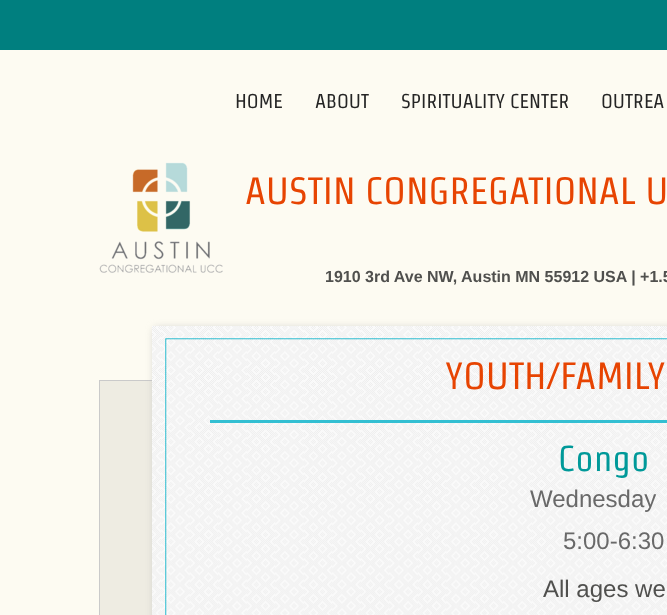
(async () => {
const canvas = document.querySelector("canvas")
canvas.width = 667
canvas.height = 615
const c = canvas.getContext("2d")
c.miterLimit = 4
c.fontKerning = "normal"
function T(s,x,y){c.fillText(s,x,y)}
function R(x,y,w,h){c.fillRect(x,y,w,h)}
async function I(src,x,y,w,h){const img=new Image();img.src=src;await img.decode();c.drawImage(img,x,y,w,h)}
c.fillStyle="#007f7f"
R(0,0,667,615)
c.fillStyle="#fdfbf2"
R(0,50,667,565)
c.font="20px Strait"
c.fillStyle="#252525"
T("HOME",235,108)
T("ABOUT",315,108)
T("SPIRITUALITY CENTER",401,108)
T("OUTREA",601,108)
await I("1.png",99,162,124,111)
c.font="38px Strait"
c.fillStyle="#e74402"
T("AUSTIN CONGREGATIONAL U",245,204)
c.font="bold 16px Liberation Sans"
c.fillStyle="#50504e"
T("1910 3rd Ave NW, Austin MN 55912 USA | +1.5",325,282)
c.fillStyle="#eeece2"
R(100,381,52,234)
c.strokeStyle="#cacaca"
c.strokeRect(99.5,380.5,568,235)
c.fillStyle="#bbb"
c.filter="blur(4px)"
c.beginPath()
c.rect(155,329,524,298)
c.fill()
c.filter="none"
await I("2.png",152,326,515,289)
c.font="38px Strait"
c.fillStyle="#e74402"
T("YOUTH/FAMILY",445,389)
c.fillStyle="#33bfd2"
R(210,420,457,3)
c.font="36px Strait"
c.fillStyle="#099"
T("Congo",558,471)
c.font="24px Liberation Sans"
c.fillStyle="#696969"
T("Wednesday",530,507)
T("5:00-6:30",563,549)
c.fillStyle="#50504e"
T("All ages we",543,597)
})()
